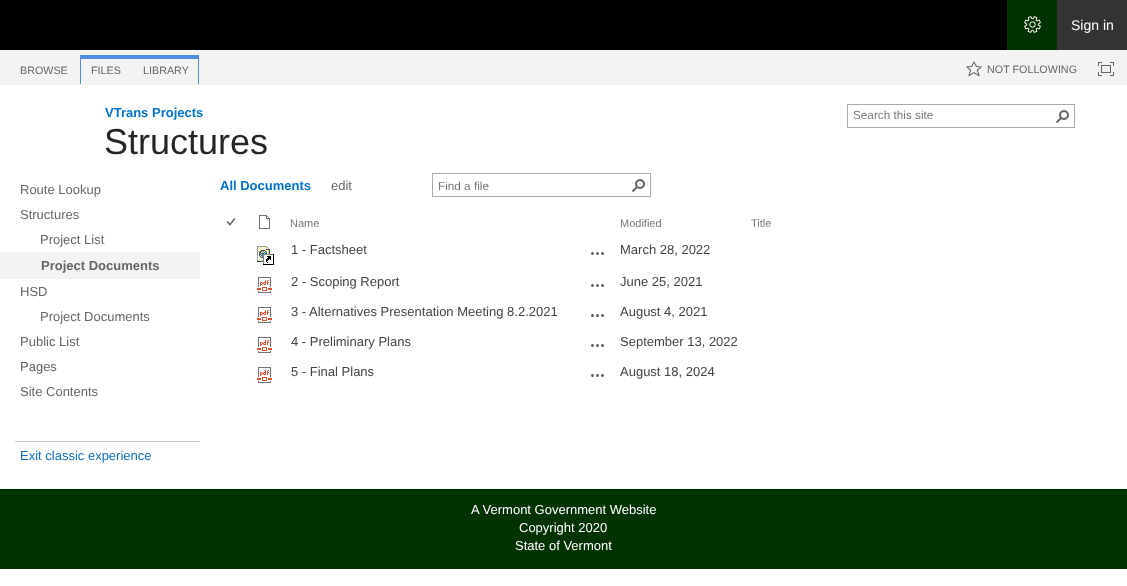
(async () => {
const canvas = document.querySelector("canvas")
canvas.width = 1127
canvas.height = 586
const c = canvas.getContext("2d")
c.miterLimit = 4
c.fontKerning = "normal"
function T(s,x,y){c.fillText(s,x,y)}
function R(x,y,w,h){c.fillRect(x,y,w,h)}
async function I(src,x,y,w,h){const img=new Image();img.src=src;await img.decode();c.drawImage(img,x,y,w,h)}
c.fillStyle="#fff"
R(0,0,1127,586)
c.fillStyle="#000"
R(0,0,1007,50)
c.fillStyle="#030"
R(1007,0,50,50)
await I("1.png",1024,16,17,17)
c.fillStyle="#333"
R(1057,0,70,50)
c.font="14px Liberation Sans"
c.fillStyle="#fff"
T("Sign in",1071,30)
c.fillStyle="#f3f3f3"
R(0,50,1127,34)
c.fillStyle="#f0f0f0"
R(0,84,1127,1)
c.font="10.75px Liberation Sans"
c.fillStyle="#666"
T("BROWSE",20,74)
c.fillStyle="#508ee6"
R(80,55,119,4)
R(80,59,1,25)
c.fillStyle="#666"
T("FILES",91,74)
c.fillStyle="#508ee6"
R(198,59,1,25)
c.fillStyle="#666"
T("LIBRARY",143,74)
await I("2.png",966,61,16,16)
T("NOT FOLLOWING",987,73)
await I("3.png",1098,62,16,14)
c.font="bold 13px Liberation Sans"
c.fillStyle="#0072c6"
T("VTrans Projects",105,117)
c.font="36px Liberation Sans"
c.fillStyle="#262626"
T("Structures",104,154)
c.strokeStyle="#ababab"
c.strokeRect(847.5,104.5,227,23)
c.font="11.75px Liberation Sans"
c.fillStyle="#777"
T("Search this site",853,119)
await I("4.png",1055,110,14,14)
c.font="13px Liberation Sans"
c.fillStyle="#666"
T("Route Lookup",20,194)
T("Structures",20,219)
T("Project List",40,244)
c.fillStyle="#f3f3f3"
R(0,252,200,27)
c.font="bold 13px Liberation Sans"
c.fillStyle="#666"
T("Project Documents",41,270)
c.font="13px Liberation Sans"
T("HSD",20,296)
T("Project Documents",40,321)
T("Public List",20,346)
T("Pages",20,371)
T("Site Contents",20,396)
c.fillStyle="#c6c6c6"
R(15,441,185,1)
c.fillStyle="#106ebe"
T("Exit classic experience",20,460)
c.font="bold 13px Liberation Sans"
c.fillStyle="#0072c6"
T("All Documents",220,190)
c.font="13px Liberation Sans"
c.fillStyle="#666"
T("edit",331,190)
c.strokeRect(432.5,173.5,218,23)
c.font="11.75px Liberation Sans"
c.fillStyle="#777"
T("Find a file",438,190)
await I("4.png",631,179,14,14)
await I("5.png",227,218,9,8)
await I("6.png",259,215,11,14)
c.font="11px Liberation Sans"
T("Name",290,227)
T("Modified",620,227)
T("Title",751,227)
await I("7.png",257,246,17,19)
c.font="13px Liberation Sans"
c.fillStyle="#444"
T("1 - Factsheet",291,254)
await I("8.png",591,252,13,3)
T("March 28, 2022",620,254)
await I("9.png",257,277,15,16)
T("2 - Scoping Report",291,286)
await I("8.png",591,284,13,3)
T("June 25, 2021",620,286)
await I("9.png",257,307,15,16)
T("3 - Alternatives Presentation Meeting 8.2.2021",291,316)
await I("8.png",591,314,13,3)
T("August 4, 2021",620,316)
await I("9.png",257,337,15,16)
T("4 - Preliminary Plans",291,346)
await I("8.png",591,344,13,3)
T("September 13, 2022",620,346)
await I("9.png",257,367,15,16)
T("5 - Final Plans",291,376)
await I("8.png",591,374,13,3)
T("August 18, 2024",620,376)
c.fillStyle="#030"
R(0,489,1127,80)
c.fillStyle="#fff"
T("A Vermont Government Website",471,514)
T("Copyright 2020",519,532)
T("State of Vermont",515,550)
})()
